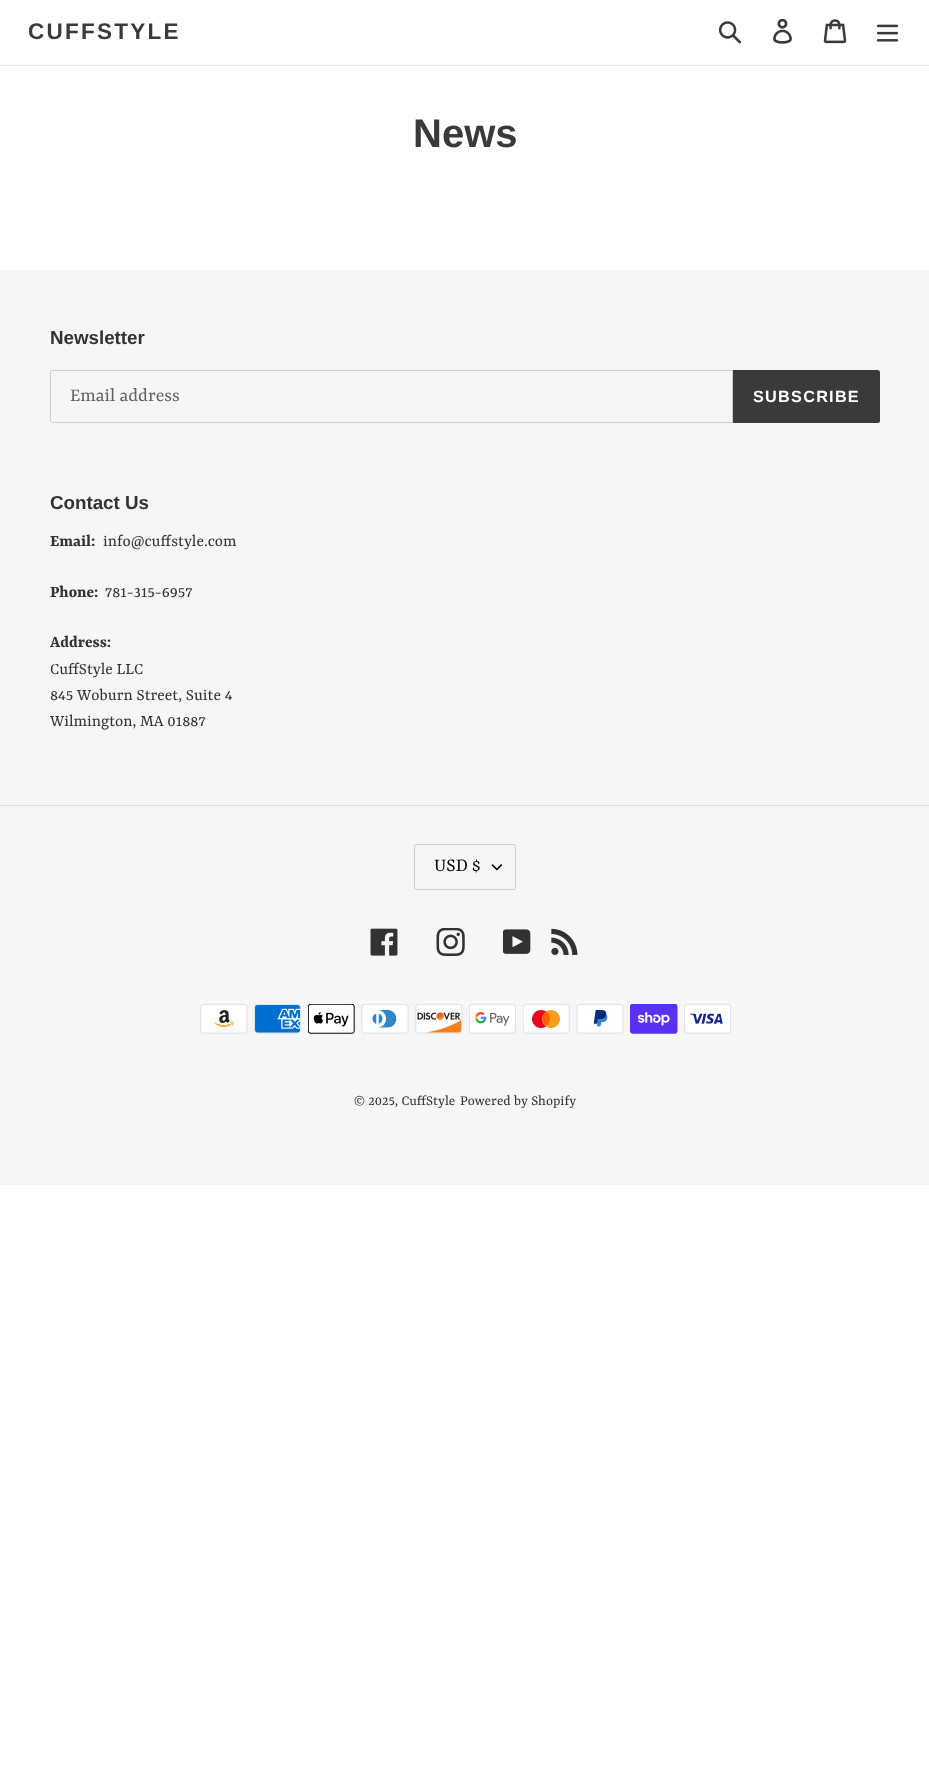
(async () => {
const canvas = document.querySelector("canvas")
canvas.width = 929
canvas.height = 1787
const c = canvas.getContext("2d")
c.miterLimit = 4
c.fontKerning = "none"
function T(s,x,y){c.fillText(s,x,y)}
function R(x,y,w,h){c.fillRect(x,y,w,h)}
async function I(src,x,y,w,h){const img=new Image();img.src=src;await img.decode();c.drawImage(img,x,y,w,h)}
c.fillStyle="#fff"
R(0,0,929,1787)
c.fillStyle="#ebebeb"
R(0,65,929,1)
c.letterSpacing="2.25px"
c.font="bold 22.5px Liberation Sans"
c.fillStyle="#3a3a3a"
T("CUFFSTYLE",28,39)
await I("1.png",718,21,23,23)
await I("2.png",773,19,19,25)
await I("3.png",823,19,24,25)
await I("4.png",876,24,23,18)
c.letterSpacing="0px"
c.font="bold 40px Liberation Sans"
T("News",413,147)
c.fillStyle="#f6f6f6"
R(0,270,929,915)
c.font="bold 18.75px Liberation Sans"
c.fillStyle="#333232"
T("Newsletter",50,344)
c.beginPath()
c.roundRect(50.5,370.5,682,52,[2,0,0,2])
c.strokeStyle="#ccc"
c.stroke()
c.font="20px Yrsa"
c.fillStyle="#626262"
T("Email address",70,401)
c.fillStyle="#3a3a3a"
c.beginPath()
c.roundRect(733,370,147,53,[0,2.5,2.5,0])
c.fill()
c.letterSpacing="1.25px"
c.font="bold 16.25px Liberation Sans"
c.fillStyle="#fff"
T("SUBSCRIBE",753,402)
c.letterSpacing="0px"
c.font="bold 18.75px Liberation Sans"
c.fillStyle="#333232"
T("Contact Us",50,509)
c.font="bold 17.5px Yrsa"
T("Email:",50,546)
c.font="17.5px Yrsa"
T("info@cuffstyle.com",103,546)
c.font="bold 17.5px Yrsa"
T("Phone:",50,597)
c.font="17.5px Yrsa"
T("781-315-6957",105,597)
c.font="bold 17.5px Yrsa"
T("Address:",50,647)
c.font="17.5px Yrsa"
T("CuffStyle LLC",50,674)
T("845 Woburn Street, Suite 4",50,700)
T("Wilmington, MA 01887",50,726)
c.fillStyle="#ddd"
R(0,805,929,1)
await I("5.png",491,864,12,7)
c.beginPath()
c.roundRect(414.5,844.5,101,45,2)
c.stroke()
c.font="20px Yrsa"
c.fillStyle="#000"
T("USD $",434,871)
await I("6.png",370,928,28,28)
await I("7.png",436,928,29,28)
await I("8.png",503,929,28,25)
await I("9.png",551,928,27,27)
await I("10.png",200,1004,48,30)
await I("11.png",254,1004,47,30)
await I("12.png",308,1004,47,30)
await I("13.png",361,1004,48,30)
await I("14.png",415,1004,48,30)
await I("15.png",469,1004,47,30)
await I("16.png",523,1004,47,30)
await I("17.png",576,1004,48,30)
await I("18.png",630,1004,48,30)
await I("19.png",684,1004,47,30)
c.font="15px Yrsa"
c.fillStyle="#333232"
T("© 2025, CuffStyle",354,1105)
T("Powered by Shopify",460,1105)
})()
